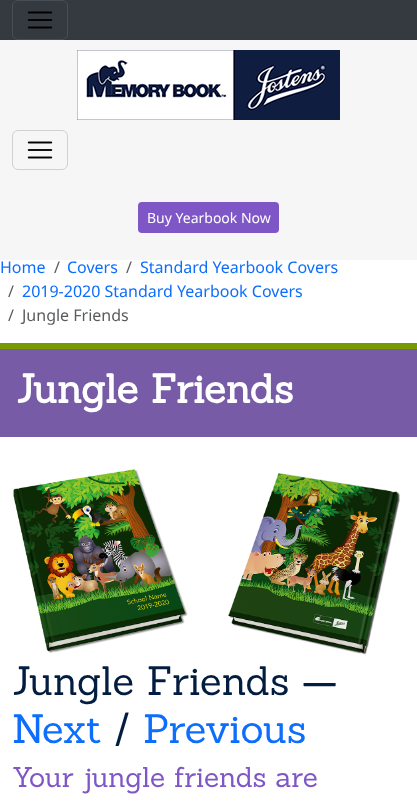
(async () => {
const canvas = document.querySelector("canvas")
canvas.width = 417
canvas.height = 808
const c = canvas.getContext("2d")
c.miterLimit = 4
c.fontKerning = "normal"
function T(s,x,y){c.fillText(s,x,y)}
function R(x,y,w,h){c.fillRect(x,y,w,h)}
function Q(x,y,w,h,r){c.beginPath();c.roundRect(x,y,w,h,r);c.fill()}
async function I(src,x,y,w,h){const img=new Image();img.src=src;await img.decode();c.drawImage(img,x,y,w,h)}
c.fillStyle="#fff"
R(0,0,417,808)
c.fillStyle="#343a40"
R(0,0,417,40)
c.beginPath()
c.roundRect(12.5,.5,55,39,5.5)
c.strokeStyle="#484e53"
c.stroke()
await I("1.png",27,11,26,18)
c.fillStyle="#f6f6f6"
R(0,122,417,138)
c.beginPath()
c.roundRect(12.5,130.5,55,39,5.5)
c.strokeStyle="#d1d1d1"
c.stroke()
await I("2.png",27,141,26,18)
R(0,40,417,82)
await I("3.png",77,50,263,70)
c.fillStyle="#7f56c5"
Q(138,202,141,31,4)
c.font="14px Noto Sans"
c.fillStyle="#fff"
T("Buy Yearbook Now",147,223)
c.font="16px Noto Sans"
c.fillStyle="#0d6efd"
T("Home",0,273)
c.fillStyle="#595c5f"
T("/",54,273)
c.fillStyle="#0d6efd"
T("Covers",67,273)
c.fillStyle="#595c5f"
T("/",126,273)
c.fillStyle="#0d6efd"
T("Standard Yearbook Covers",140,273)
c.fillStyle="#595c5f"
T("/",8,297)
c.fillStyle="#0d6efd"
T("2019-2020 Standard Yearbook Covers",22,297)
c.fillStyle="#595c5f"
T("/",8,321)
T("Jungle Friends",22,321)
c.fillStyle="#775ba6"
R(0,349,417,88)
c.fillStyle="#799900"
R(0,343,417,6)
c.font="bold 40px Sanchez"
c.fillStyle="#fff"
T("Jungle Friends",16,403)
await I("4.png",13,469,175,184)
await I("5.png",228,473,172,182)
c.font="40px Sanchez"
c.fillStyle="#031d40"
T("Jungle Friends —",12,695)
c.fillStyle="#0d6efd"
T("Next",12,743)
c.fillStyle="#031d40"
T("/",114,743)
c.fillStyle="#0d6efd"
T("Previous",143,743)
c.font="28px Sanchez"
c.fillStyle="#7f56c5"
T("Your jungle friends are",12,787)
})()
